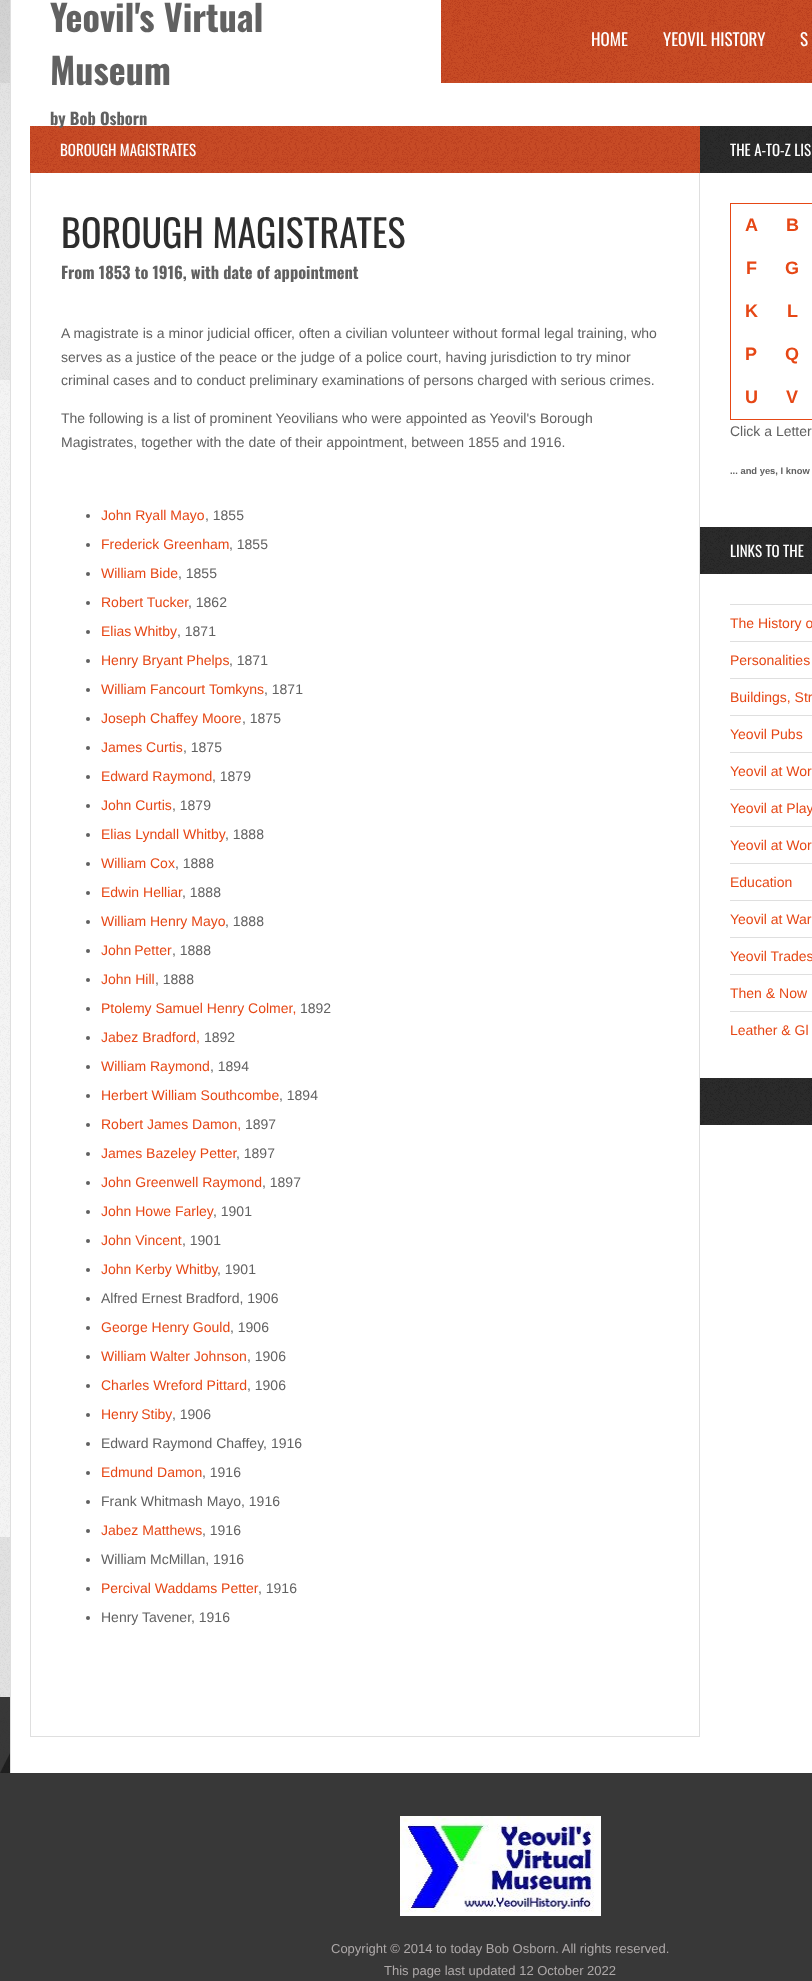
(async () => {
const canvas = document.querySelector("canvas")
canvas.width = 812
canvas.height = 1981
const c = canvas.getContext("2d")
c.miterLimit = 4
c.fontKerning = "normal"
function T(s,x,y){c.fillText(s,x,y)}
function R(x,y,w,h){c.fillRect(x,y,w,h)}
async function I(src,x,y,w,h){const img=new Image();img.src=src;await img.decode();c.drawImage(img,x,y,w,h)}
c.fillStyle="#383838"
R(0,0,812,1981)
await I("1.png",0,0,812,106)
c.font="bold 36px Oswald"
c.fillStyle="#616161"
T("Yeovil's Virtual",50,32)
T("Museum",50,85)
await I("2.png",0,106,812,1667)
await I("5.png",30,126,670,47)
c.font="bold 16.4px Oswald"
T("by Bob Osborn",50,125)
c.font="17px Oswald"
c.fillStyle="#fff"
T("HOME",591,46)
T("YEOVIL HISTORY",663,46)
T("S",800,46)
await I("3.png",0,106,10,274)
await I("4.png",0,1537,10,236)
c.font="15px Oswald"
T("BOROUGH MAGISTRATES",60,156)
c.fillStyle="#dfdfdf"
R(699,173,1,1564)
R(30,1736,670,1)
R(30,173,1,1564)
c.font="38px Oswald"
c.fillStyle="#2d2d2d"
T("BOROUGH MAGISTRATES",61,248)
c.font="bold 16.4px Oswald"
c.fillStyle="#616161"
T("From 1853 to 1916, with date of appointment",61,279)
c.font="14px Liberation Sans"
T("A magistrate is a minor judicial officer, often a civilian volunteer without formal legal training, who",61,338)
T("serves as a justice of the peace or the judge of a police court, having jurisdiction to try minor",61,362)
T("criminal cases and to conduct preliminary examinations of persons charged with serious crimes.",61,385)
T("The following is a list of prominent Yeovilians who were appointed as Yeovil's Borough",61,423)
T("Magistrates, together with the date of their appointment, between 1855 and 1916.",61,447)
c.beginPath()
c.arc(88,516,2,0,7)
c.fill()
c.fillStyle="#e64715"
T("John Ryall Mayo",101,520)
c.fillStyle="#616161"
T(", 1855",205,520)
c.beginPath()
c.arc(88,545,2,0,7)
c.fill()
c.fillStyle="#e64715"
T("Frederick Greenham",101,549)
c.fillStyle="#616161"
T(", 1855",229,549)
c.beginPath()
c.arc(88,574,2,0,7)
c.fill()
c.fillStyle="#e64715"
T("William Bide",101,578)
c.fillStyle="#616161"
T(", 1855",178,578)
c.beginPath()
c.arc(88,603,2,0,7)
c.fill()
c.fillStyle="#e64715"
T("Robert Tucker",101,607)
c.fillStyle="#616161"
T(", 1862",188,607)
c.beginPath()
c.arc(88,632,2,0,7)
c.fill()
c.wordSpacing="-1px"
c.fillStyle="#e64715"
T("Elias Whitby",101,636)
c.wordSpacing="0px"
c.fillStyle="#616161"
T(", 1871",177,636)
c.beginPath()
c.arc(88,661,2,0,7)
c.fill()
c.fillStyle="#e64715"
T("Henry Bryant Phelps",101,665)
c.fillStyle="#616161"
T(", 1871",229,665)
c.beginPath()
c.arc(88,690,2,0,7)
c.fill()
c.fillStyle="#e64715"
T("William Fancourt Tomkyns",101,694)
c.fillStyle="#616161"
T(", 1871",264,694)
c.beginPath()
c.arc(88,719,2,0,7)
c.fill()
c.fillStyle="#e64715"
T("Joseph Chaffey Moore",101,723)
c.fillStyle="#616161"
T(", 1875",242,723)
c.beginPath()
c.arc(88,748,2,0,7)
c.fill()
c.fillStyle="#e64715"
T("James Curtis",101,752)
c.fillStyle="#616161"
T(", 1875",183,752)
c.beginPath()
c.arc(88,777,2,0,7)
c.fill()
c.fillStyle="#e64715"
T("Edward Raymond",101,781)
c.fillStyle="#616161"
T(", 1879",212,781)
c.beginPath()
c.arc(88,806,2,0,7)
c.fill()
c.fillStyle="#e64715"
T("John Curtis",101,810)
c.fillStyle="#616161"
T(", 1879",172,810)
c.beginPath()
c.arc(88,835,2,0,7)
c.fill()
c.fillStyle="#e64715"
T("Elias Lyndall Whitby",101,839)
c.fillStyle="#616161"
T(", 1888",225,839)
c.beginPath()
c.arc(88,864,2,0,7)
c.fill()
c.fillStyle="#e64715"
T("William Cox",101,868)
c.fillStyle="#616161"
T(", 1888",175,868)
c.beginPath()
c.arc(88,893,2,0,7)
c.fill()
c.fillStyle="#e64715"
T("Edwin Helliar",101,897)
c.fillStyle="#616161"
T(", 1888",182,897)
c.beginPath()
c.arc(88,922,2,0,7)
c.fill()
c.fillStyle="#e64715"
T("William Henry Mayo",101,926)
c.fillStyle="#616161"
T(", 1888",225,926)
c.beginPath()
c.arc(88,951,2,0,7)
c.fill()
c.wordSpacing="-1px"
c.fillStyle="#e64715"
T("John Petter",101,955)
c.wordSpacing="0px"
c.fillStyle="#616161"
T(", 1888",172,955)
c.beginPath()
c.arc(88,980,2,0,7)
c.fill()
c.fillStyle="#e64715"
T("John Hill",101,984)
c.fillStyle="#616161"
T(", 1888",155,984)
c.beginPath()
c.arc(88,1009,2,0,7)
c.fill()
c.fillStyle="#e64715"
T("Ptolemy Samuel Henry Colmer,",101,1013)
c.fillStyle="#616161"
T("1892",300,1013)
c.beginPath()
c.arc(88,1038,2,0,7)
c.fill()
c.fillStyle="#e64715"
T("Jabez Bradford,",101,1042)
c.fillStyle="#616161"
T("1892",204,1042)
c.beginPath()
c.arc(88,1067,2,0,7)
c.fill()
c.fillStyle="#e64715"
T("William Raymond",101,1071)
c.fillStyle="#616161"
T(", 1894",210,1071)
c.beginPath()
c.arc(88,1096,2,0,7)
c.fill()
c.fillStyle="#e64715"
T("Herbert William Southcombe",101,1100)
c.fillStyle="#616161"
T(", 1894",279,1100)
c.beginPath()
c.arc(88,1125,2,0,7)
c.fill()
c.fillStyle="#e64715"
T("Robert James Damon,",101,1129)
c.fillStyle="#616161"
T("1897",245,1129)
c.beginPath()
c.arc(88,1154,2,0,7)
c.fill()
c.fillStyle="#e64715"
T("James Bazeley Petter",101,1158)
c.fillStyle="#616161"
T(", 1897",236,1158)
c.beginPath()
c.arc(88,1183,2,0,7)
c.fill()
c.fillStyle="#e64715"
T("John Greenwell Raymond",101,1187)
c.fillStyle="#616161"
T(", 1897",262,1187)
c.beginPath()
c.arc(88,1212,2,0,7)
c.fill()
c.fillStyle="#e64715"
T("John Howe Farley",101,1216)
c.fillStyle="#616161"
T(", 1901",213,1216)
c.beginPath()
c.arc(88,1241,2,0,7)
c.fill()
c.fillStyle="#e64715"
T("John Vincent",101,1245)
c.fillStyle="#616161"
T(", 1901",182,1245)
c.beginPath()
c.arc(88,1270,2,0,7)
c.fill()
c.fillStyle="#e64715"
T("John Kerby Whitby",101,1274)
c.fillStyle="#616161"
T(", 1901",217,1274)
c.beginPath()
c.arc(88,1299,2,0,7)
c.fill()
T("Alfred Ernest Bradford, 1906",101,1303)
c.beginPath()
c.arc(88,1328,2,0,7)
c.fill()
c.fillStyle="#e64715"
T("George Henry Gould",101,1332)
c.fillStyle="#616161"
T(", 1906",230,1332)
c.beginPath()
c.arc(88,1357,2,0,7)
c.fill()
c.fillStyle="#e64715"
T("William Walter Johnson",101,1361)
c.fillStyle="#616161"
T(", 1906",247,1361)
c.beginPath()
c.arc(88,1386,2,0,7)
c.fill()
c.fillStyle="#e64715"
T("Charles Wreford Pittard",101,1390)
c.fillStyle="#616161"
T(", 1906",247,1390)
c.beginPath()
c.arc(88,1415,2,0,7)
c.fill()
c.wordSpacing="-1px"
c.fillStyle="#e64715"
T("Henry Stiby",101,1419)
c.wordSpacing="0px"
c.fillStyle="#616161"
T(", 1906",172,1419)
c.beginPath()
c.arc(88,1444,2,0,7)
c.fill()
T("Edward Raymond Chaffey, 1916",101,1448)
c.beginPath()
c.arc(88,1473,2,0,7)
c.fill()
c.fillStyle="#e64715"
T("Edmund Damon",101,1477)
c.fillStyle="#616161"
T(", 1916",202,1477)
c.beginPath()
c.arc(88,1502,2,0,7)
c.fill()
T("Frank Whitmash Mayo, 1916",101,1506)
c.beginPath()
c.arc(88,1531,2,0,7)
c.fill()
c.fillStyle="#e64715"
T("Jabez Matthews",101,1535)
c.fillStyle="#616161"
T(", 1916",202,1535)
c.beginPath()
c.arc(88,1560,2,0,7)
c.fill()
T("William McMillan, 1916",101,1564)
c.beginPath()
c.arc(88,1589,2,0,7)
c.fill()
c.fillStyle="#e64715"
T("Percival Waddams Petter",101,1593)
c.fillStyle="#616161"
T(", 1916",258,1593)
c.beginPath()
c.arc(88,1618,2,0,7)
c.fill()
T("Henry Tavener, 1916",101,1622)
await I("6.png",700,126,112,47)
c.font="15px Oswald"
c.fillStyle="#fff"
T("THE A-TO-Z LIS",730,156)
c.strokeStyle="#e64715"
c.strokeRect(730.5,203.5,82,216)
c.font="bold 18px Liberation Sans"
c.fillStyle="#e64715"
T("A",745,231)
T("B",786,231)
T("F",746,274)
T("G",785,274)
T("K",745,317)
T("L",787,317)
T("P",745,360)
T("Q",785,360)
T("U",745,403)
T("V",786,403)
c.font="14px Liberation Sans"
c.fillStyle="#616161"
T("Click a Letter",730,436)
c.font="bold 9.4px Liberation Sans"
T("... and yes, I know",730,474)
await I("6.png",700,527,112,47)
c.font="15px Oswald"
c.fillStyle="#fff"
T("LINKS TO THE",730,557)
c.fillStyle="#dfdfdf"
R(730,604,82,1)
c.font="14px Liberation Sans"
c.fillStyle="#e64715"
T("The History o",730,628)
c.fillStyle="#dfdfdf"
R(730,641,82,1)
c.fillStyle="#e64715"
T("Personalities",730,665)
c.fillStyle="#dfdfdf"
R(730,678,82,1)
c.fillStyle="#e64715"
T("Buildings, Str",730,702)
c.fillStyle="#dfdfdf"
R(730,715,82,1)
c.fillStyle="#e64715"
T("Yeovil Pubs",730,739)
c.fillStyle="#dfdfdf"
R(730,752,82,1)
c.fillStyle="#e64715"
T("Yeovil at Wor",730,776)
c.fillStyle="#dfdfdf"
R(730,789,82,1)
c.fillStyle="#e64715"
T("Yeovil at Play",730,813)
c.fillStyle="#dfdfdf"
R(730,826,82,1)
c.fillStyle="#e64715"
T("Yeovil at Wor",730,850)
c.fillStyle="#dfdfdf"
R(730,863,82,1)
c.fillStyle="#e64715"
T("Education",730,887)
c.fillStyle="#dfdfdf"
R(730,900,82,1)
c.fillStyle="#e64715"
T("Yeovil at War",730,924)
c.fillStyle="#dfdfdf"
R(730,937,82,1)
c.fillStyle="#e64715"
T("Yeovil Trades",730,961)
c.fillStyle="#dfdfdf"
R(730,974,82,1)
c.fillStyle="#e64715"
T("Then & Now",730,998)
c.fillStyle="#dfdfdf"
R(730,1011,82,1)
c.fillStyle="#e64715"
T("Leather & Gl",730,1035)
await I("6.png",700,1078,112,47)
await I("7.png",400,1816,201,100)
c.font="13px Liberation Sans"
c.fillStyle="#aea9a9"
T("Copyright © 2014 to today Bob Osborn. All rights reserved.",331,1953)
T("This page last updated 12 October 2022",384,1975)
})()
